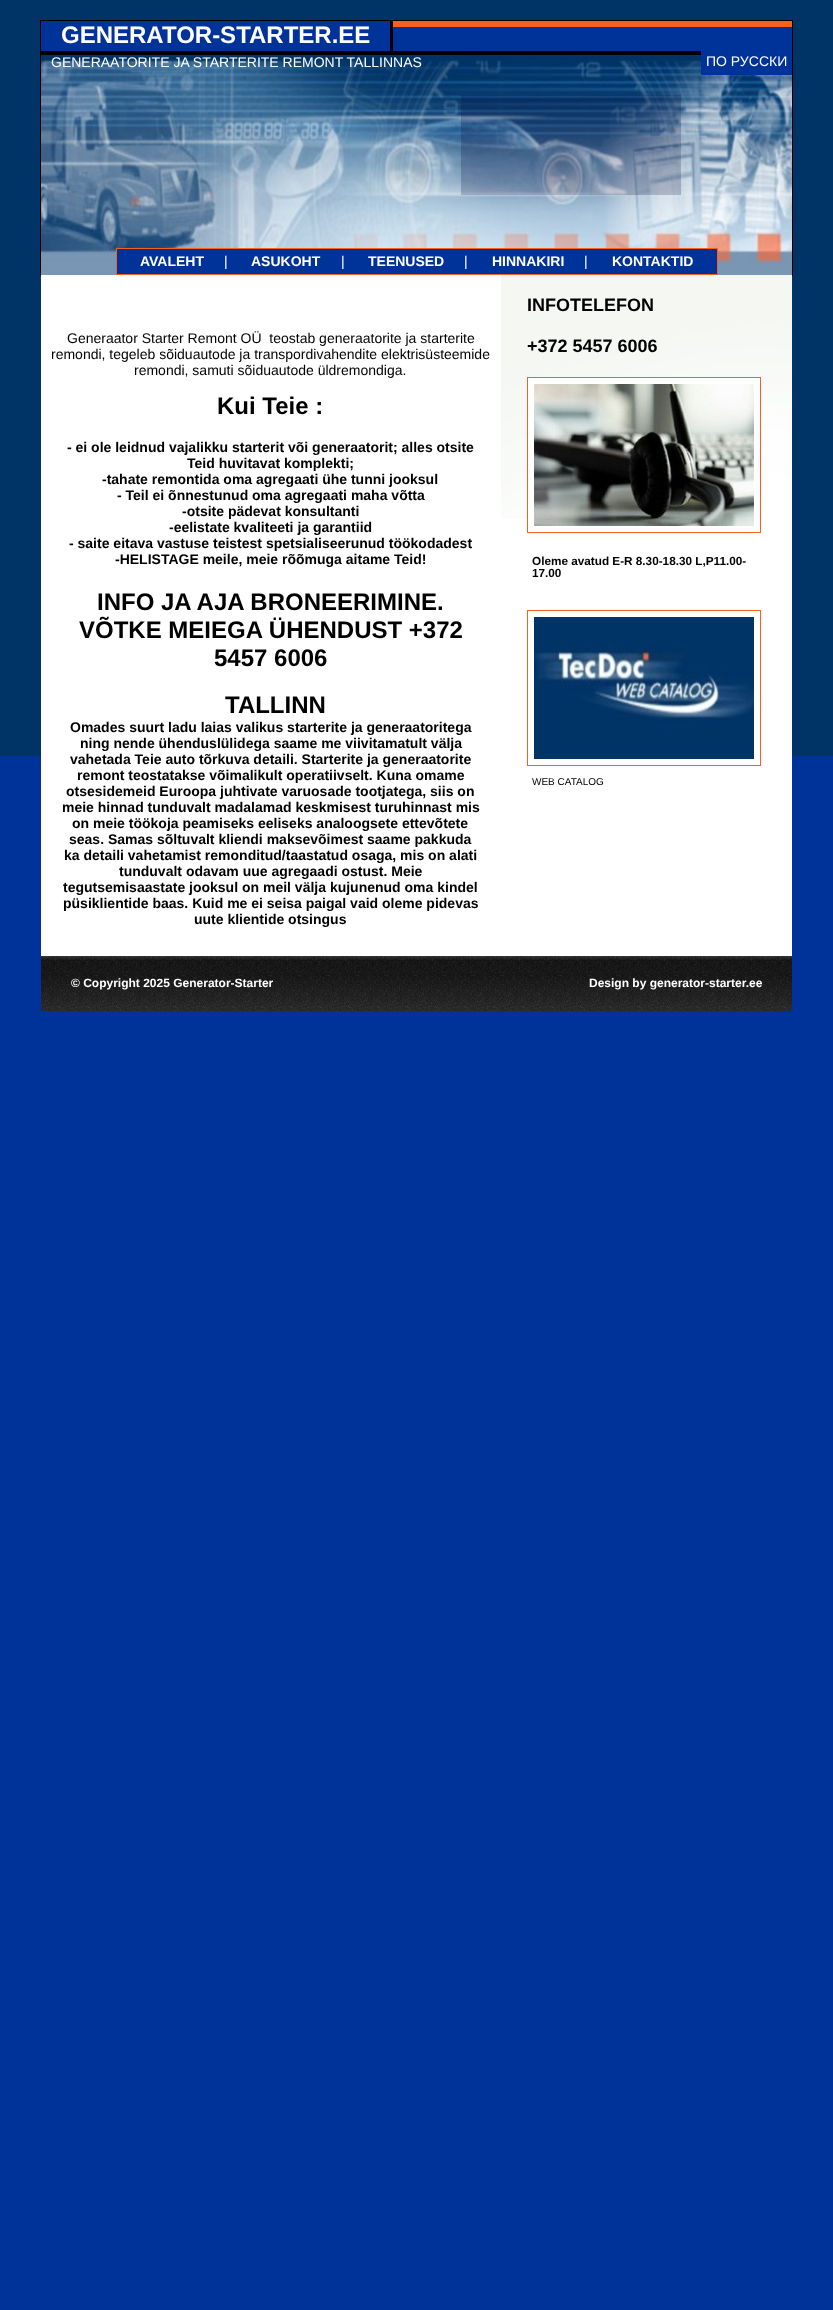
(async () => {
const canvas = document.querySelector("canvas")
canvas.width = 833
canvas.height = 2310
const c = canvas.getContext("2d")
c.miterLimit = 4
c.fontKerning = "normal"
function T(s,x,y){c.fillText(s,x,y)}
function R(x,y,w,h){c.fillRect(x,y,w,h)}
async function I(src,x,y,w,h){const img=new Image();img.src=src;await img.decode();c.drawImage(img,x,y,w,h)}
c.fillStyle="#039"
R(0,0,833,2310)
c.fillStyle="#003466"
R(0,0,833,756)
c.strokeStyle="#000"
c.strokeRect(40.5,20.5,752,255)
c.fillStyle="#039"
R(41,27,751,24)
c.fillStyle="#000"
R(41,51,660,4)
c.fillStyle="#039"
R(370,21,20,6)
R(41,21,329,6)
c.font="bold 24px Liberation Sans"
c.fillStyle="#fff"
T("GENERATOR-STARTER.EE",61,43)
c.fillStyle="#000"
R(390,21,3,30)
c.fillStyle="#f36223"
R(393,21,399,6)
await I("1.png",41,55,751,220)
c.font="14px Liberation Sans"
c.fillStyle="#fff"
T("GENERAATORITE JA STARTERITE REMONT TALLINNAS",51,67)
c.fillStyle="#039"
R(701,51,91,24)
c.fillStyle="#fff"
T("ПО РУССКИ",706,66)
c.fillStyle="#00003333"
R(461,95,220,100)
c.fillStyle="#039"
c.beginPath()
c.rect(116.5,248.5,601,26)
c.fill()
c.strokeStyle="#f36223"
c.stroke()
c.font="bold 14px Liberation Sans"
c.fillStyle="#fff"
T("AVALEHT",140,266)
c.font="14px Liberation Sans"
T("|",224,266)
c.font="bold 14px Liberation Sans"
T("ASUKOHT",251,266)
c.font="14px Liberation Sans"
T("|",341,266)
c.font="bold 14px Liberation Sans"
T("TEENUSED",368,266)
c.font="14px Liberation Sans"
T("|",464,266)
c.font="bold 14px Liberation Sans"
T("HINNAKIRI",492,266)
c.font="14px Liberation Sans"
T("|",584,266)
c.font="bold 14px Liberation Sans"
T("KONTAKTID",612,266)
R(41,275,751,681)
await I("2.png",501,275,291,244)
c.font="14px Liberation Sans"
c.fillStyle="#000"
T("Generaator Starter Remont OÜ  teostab generaatorite ja starterite",67,343)
T("remondi, tegeleb sõiduautode ja transpordivahendite elektrisüsteemide",51,359)
T("remondi, samuti sõiduautode üldremondiga.",134,375)
c.font="bold 24px Liberation Sans"
T("Kui Teie :",217,414)
c.font="bold 14px Liberation Sans"
T("- ei ole leidnud vajalikku starterit või generaatorit; alles otsite",67,452)
T("Teid huvitavat komplekti;",187,468)
T("-tahate remontida oma agregaati ühe tunni jooksul",102,484)
T("- Teil ei õnnestunud oma agregaati maha võtta",117,500)
T("-otsite pädevat konsultanti",182,516)
T("-eelistate kvaliteeti ja garantiid",169,532)
T("- saite eitava vastuse teistest spetsialiseerunud töökodadest",69,548)
T("-HELISTAGE meile, meie rõõmuga aitame Teid!",115,564)
c.font="bold 24px Liberation Sans"
T("INFO JA AJA BRONEERIMINE.",97,610)
T("VÕTKE MEIEGA ÜHENDUST +372",79,638)
T("5457 6006",214,666)
T("TALLINN",225,713)
c.font="bold 14px Liberation Sans"
T("Omades suurt ladu laias valikus starterite ja generaatoritega",70,732)
T("ning nende ühenduslülidega saame me viivitamatult välja",80,748)
T("vahetada Teie auto tõrkuva detaili. Starterite ja generaatorite",70,764)
T("remont teostatakse võimalikult operatiivselt. Kuna omame",77,780)
T("otsesidemeid Euroopa juhtivate varuosade tootjatega, siis on",66,796)
T("meie hinnad tunduvalt madalamad keskmisest turuhinnast mis",62,812)
T("on meie töökoja peamiseks eeliseks analoogsete ettevõtete",72,828)
T("seas. Samas sõltuvalt kliendi maksevõimest saame pakkuda",69,844)
T("ka detaili vahetamist remonditud/taastatud osaga, mis on alati",64,860)
T("tunduvalt odavam uue agregaadi ostust. Meie",119,876)
T("tegutsemisaastate jooksul on meil välja kujunenud oma kindel",63,892)
T("püsiklientide baas. Kuid me ei seisa paigal vaid oleme pidevas",63,908)
T("uute klientide otsingus",194,924)
c.font="bold 18px Liberation Sans"
T("INFOTELEFON",527,311)
T("+372 5457 6006",527,352)
c.fillStyle="#fff"
R(528,378,232,141)
c.strokeRect(527.5,377.5,233,155)
await I("3.png",534,384,220,142)
c.font="bold 11.75px Liberation Sans"
c.fillStyle="#000"
T("Oleme avatud E-R 8.30-18.30 L,P11.00-",532,565)
T("17.00",532,577)
c.strokeRect(527.5,610.5,233,155)
await I("4.png",534,617,220,142)
c.font="10px Liberation Sans"
T("WEB CATALOG",532,785)
await I("5.png",41,956,751,55)
c.font="bold 12px Liberation Sans"
c.fillStyle="#fff"
T("© Copyright 2025 Generator-Starter",71,987)
T("Design by generator-starter.ee",589,987)
})()
